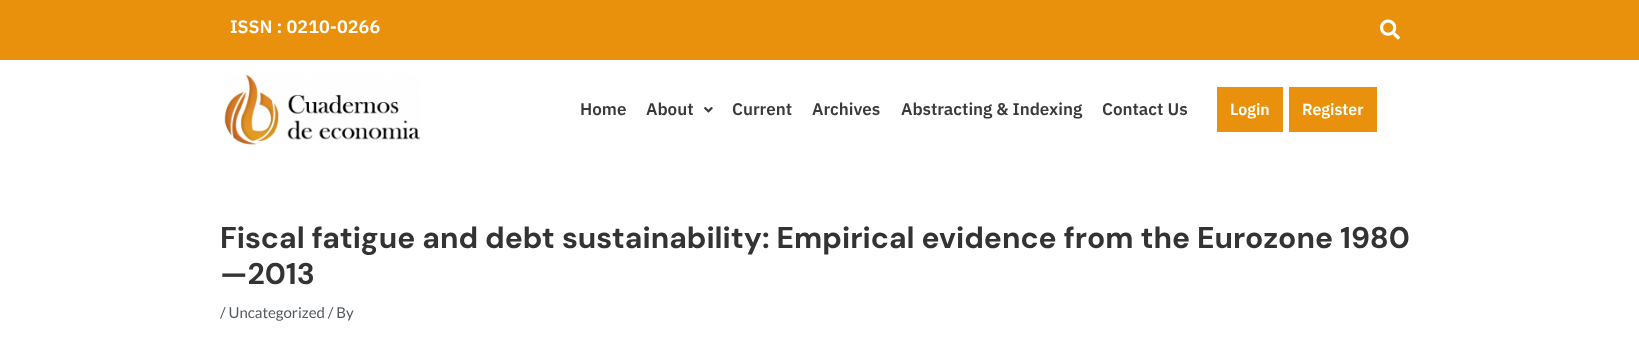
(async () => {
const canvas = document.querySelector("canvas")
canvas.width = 1639
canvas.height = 345
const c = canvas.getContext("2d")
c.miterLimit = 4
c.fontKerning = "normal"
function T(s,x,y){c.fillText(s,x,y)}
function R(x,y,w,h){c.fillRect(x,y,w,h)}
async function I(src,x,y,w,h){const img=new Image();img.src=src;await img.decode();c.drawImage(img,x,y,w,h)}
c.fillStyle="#fff"
R(0,0,1639,345)
c.fillStyle="#e9910c"
R(0,0,1639,60)
c.font="600 18px IBM Plex Sans"
c.fillStyle="#fff"
T("ISSN : 0210-0266",230,33)
await I("1.png",1380,19,20,21)
await I("2.png",224,74,197,71)
c.font="600 17px IBM Plex Sans"
c.fillStyle="#3a3a3a"
T("Home",580,115)
T("About",646,115)
await I("3.png",704,107,9,6)
T("Current",732,115)
T("Archives",812,115)
T("Abstracting & Indexing",901,115)
T("Contact Us",1102,115)
c.fillStyle="#e9910c"
R(1217,87,66,45)
c.font="600 16px IBM Plex Sans"
c.fillStyle="#fff"
T("Login",1230,115)
c.fillStyle="#e9910c"
R(1289,87,88,45)
c.fillStyle="#fff"
T("Register",1302,115)
c.font="bold 30px DM Sans"
c.fillStyle="#333"
T("Fiscal fatigue and debt sustainability: Empirical evidence from the Eurozone 1980",220,248)
T("—2013",220,284)
c.font="15px Lato"
c.fillStyle="#54595f"
T("/ Uncategorized / By",220,318)
})()
